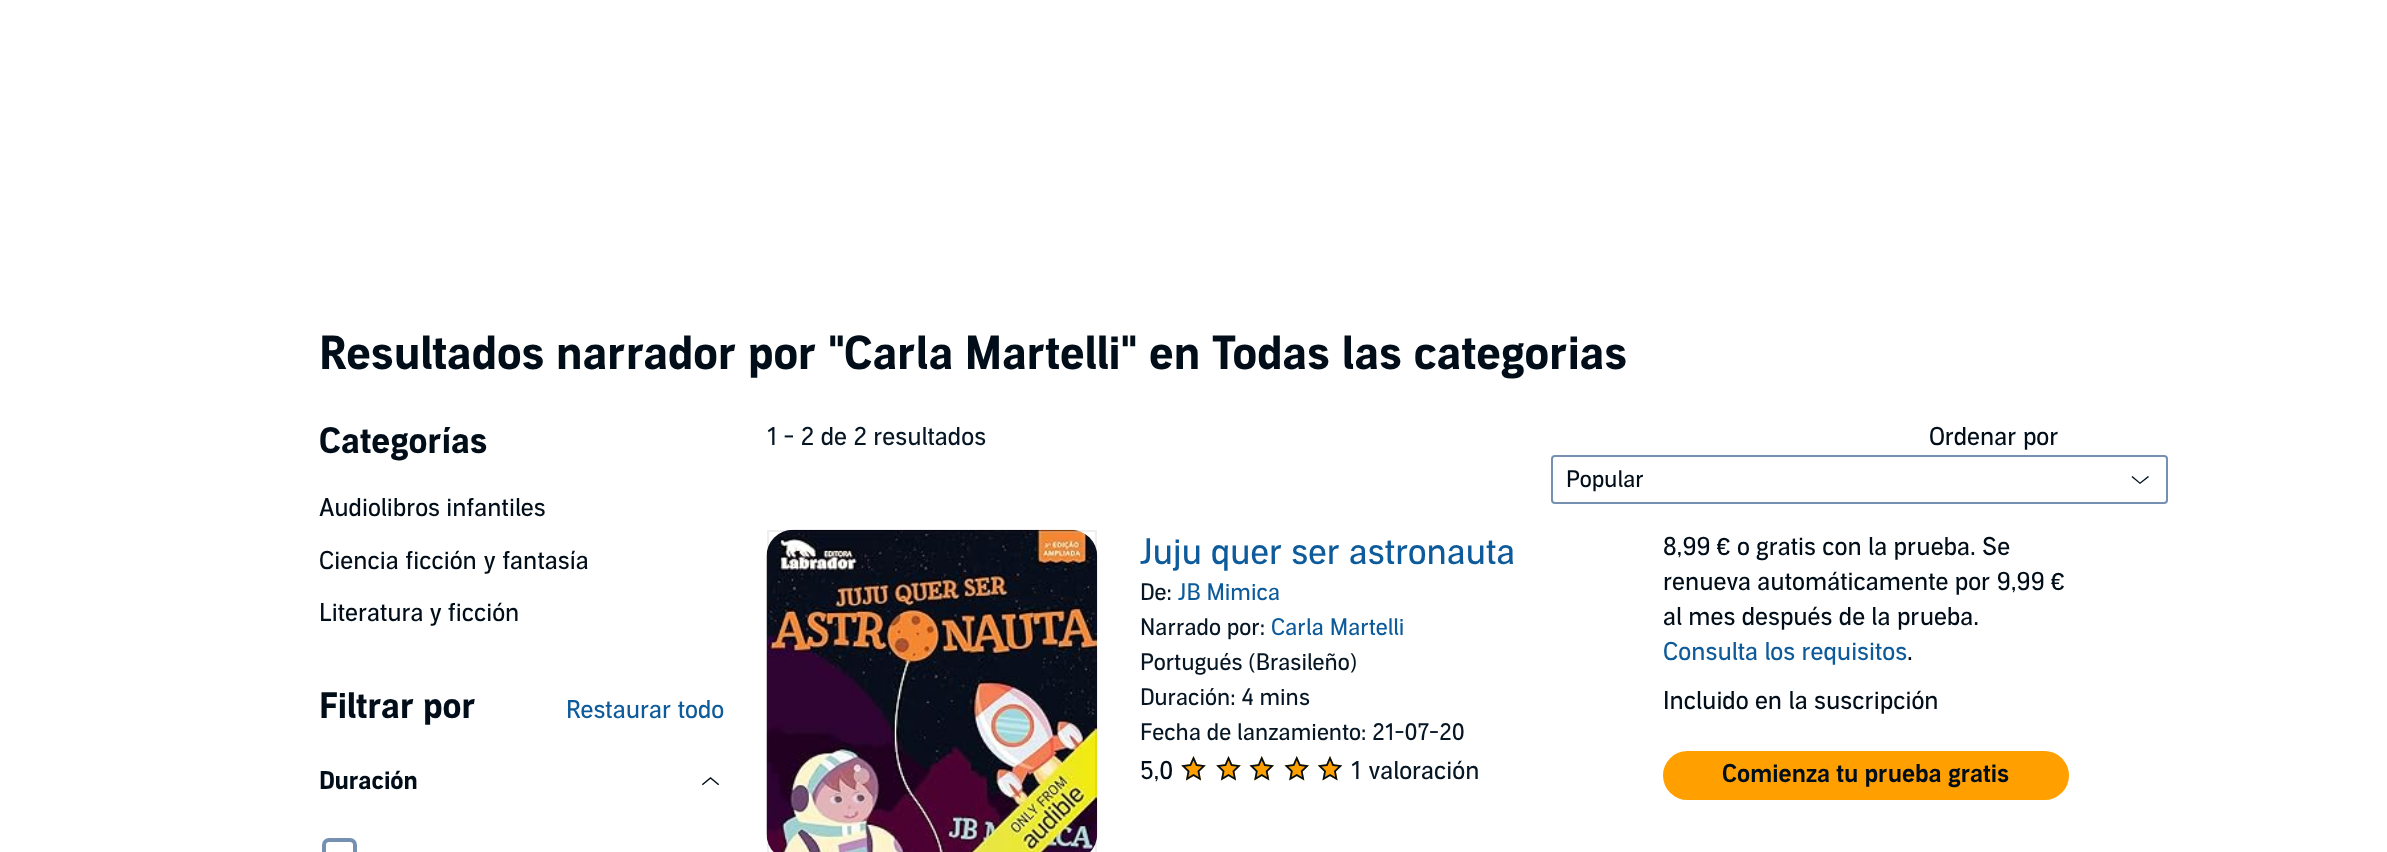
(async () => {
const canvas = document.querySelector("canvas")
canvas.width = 2387
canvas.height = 852
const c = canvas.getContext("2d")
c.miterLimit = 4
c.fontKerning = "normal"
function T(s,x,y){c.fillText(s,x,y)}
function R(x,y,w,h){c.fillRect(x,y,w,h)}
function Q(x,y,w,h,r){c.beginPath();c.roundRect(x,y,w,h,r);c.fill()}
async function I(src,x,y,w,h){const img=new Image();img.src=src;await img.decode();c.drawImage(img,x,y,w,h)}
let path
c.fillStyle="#fff"
R(0,0,2387,852)
c.font="bold 45.5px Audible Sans"
c.fillStyle="#010e19"
T("Resultados narrador por \"Carla Martelli\" en Todas las categorias",319,369)
c.font="bold 35px Audible Sans"
T("Categorías",319,453)
c.font="24.5px Audible Sans"
T("Audiolibros infantiles",319,516)
c.wordSpacing="0.5px"
T("Ciencia ficción y fantasía",319,569)
c.wordSpacing="0px"
T("Literatura y ficción",319,621)
c.font="bold 35px Audible Sans"
T("Filtrar por",319,718)
c.font="24.5px Audible Sans"
c.fillStyle="#0e5b9b"
T("Restaurar todo",566,718)
c.font="bold 24.5px Audible Sans"
c.fillStyle="#010e19"
T("Duración",319,789)
await I("1.png",701,777,19,9)
c.beginPath()
c.roundRect(324,840,31,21,5)
c.strokeStyle="#7690b2"
c.lineWidth=4
c.stroke()
c.font="24.5px Audible Sans"
c.fillStyle="#061624"
T("1 - 2 de 2 resultados",767,445)
c.fillStyle="#010e19"
T("Ordenar por",1929,445)
c.beginPath()
c.roundRect(1552,456,615,47,3)
c.lineWidth=2
c.stroke()
c.font="22.75px Audible Sans"
T("Popular",1566,487)
path = new Path2D("M2140 482.5l-7.5-6.5l-1 1l8.5 7l9-7l-1-1z")
c.fill(path)
await I("2.png",766,529,332,323)
c.strokeStyle="#21232514"
c.strokeRect(768,531,328,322)
c.font="35px Audible Sans"
c.fillStyle="#0e5b9b"
T("Juju quer ser astronauta",1140,564)
c.font="22.75px Audible Sans"
c.fillStyle="#061624"
T("De:",1140,600)
c.fillStyle="#0e5b9b"
T("JB Mimica",1178,600)
c.fillStyle="#061624"
T("Narrado por:",1140,635)
c.fillStyle="#0e5b9b"
T("Carla Martelli",1271,635)
c.fillStyle="#061624"
T("Portugués (Brasileño)",1140,670)
T("Duración: 4 mins",1140,705)
T("Fecha de lanzamiento: 21-07-20",1140,740)
c.font="24.5px Audible Sans"
c.fillStyle="#010e19"
T("5,0",1140,779)
await I("3.png",1181,756,25,25)
await I("4.png",1181,756,25,25)
await I("3.png",1216,756,25,25)
await I("4.png",1216,756,25,25)
await I("5.png",1249,756,25,25)
await I("6.png",1249,756,25,25)
await I("5.png",1284,756,25,25)
await I("6.png",1284,756,25,25)
await I("7.png",1317,756,26,25)
await I("8.png",1317,756,26,25)
c.wordSpacing="1px"
c.fillStyle="#061624"
T("1 valoración",1351,779)
c.wordSpacing="0px"
c.fillStyle="#010e19"
T("8,99 € o gratis con la prueba. Se",1663,555)
T("renueva automáticamente por 9,99 €",1663,590)
T("al mes después de la prueba.",1663,625)
c.fillStyle="#0e5b9b"
T("Consulta los requisitos",1663,660)
c.fillStyle="#010e19"
T(".",1907,660)
T("Incluido en la suscripción",1663,709)
c.fillStyle="#ffa000"
Q(1663,751,406,49,24.5)
c.font="600 24.5px Audible Sans"
c.fillStyle="#010e19"
T("Comienza tu prueba gratis",1722,782)
})()
